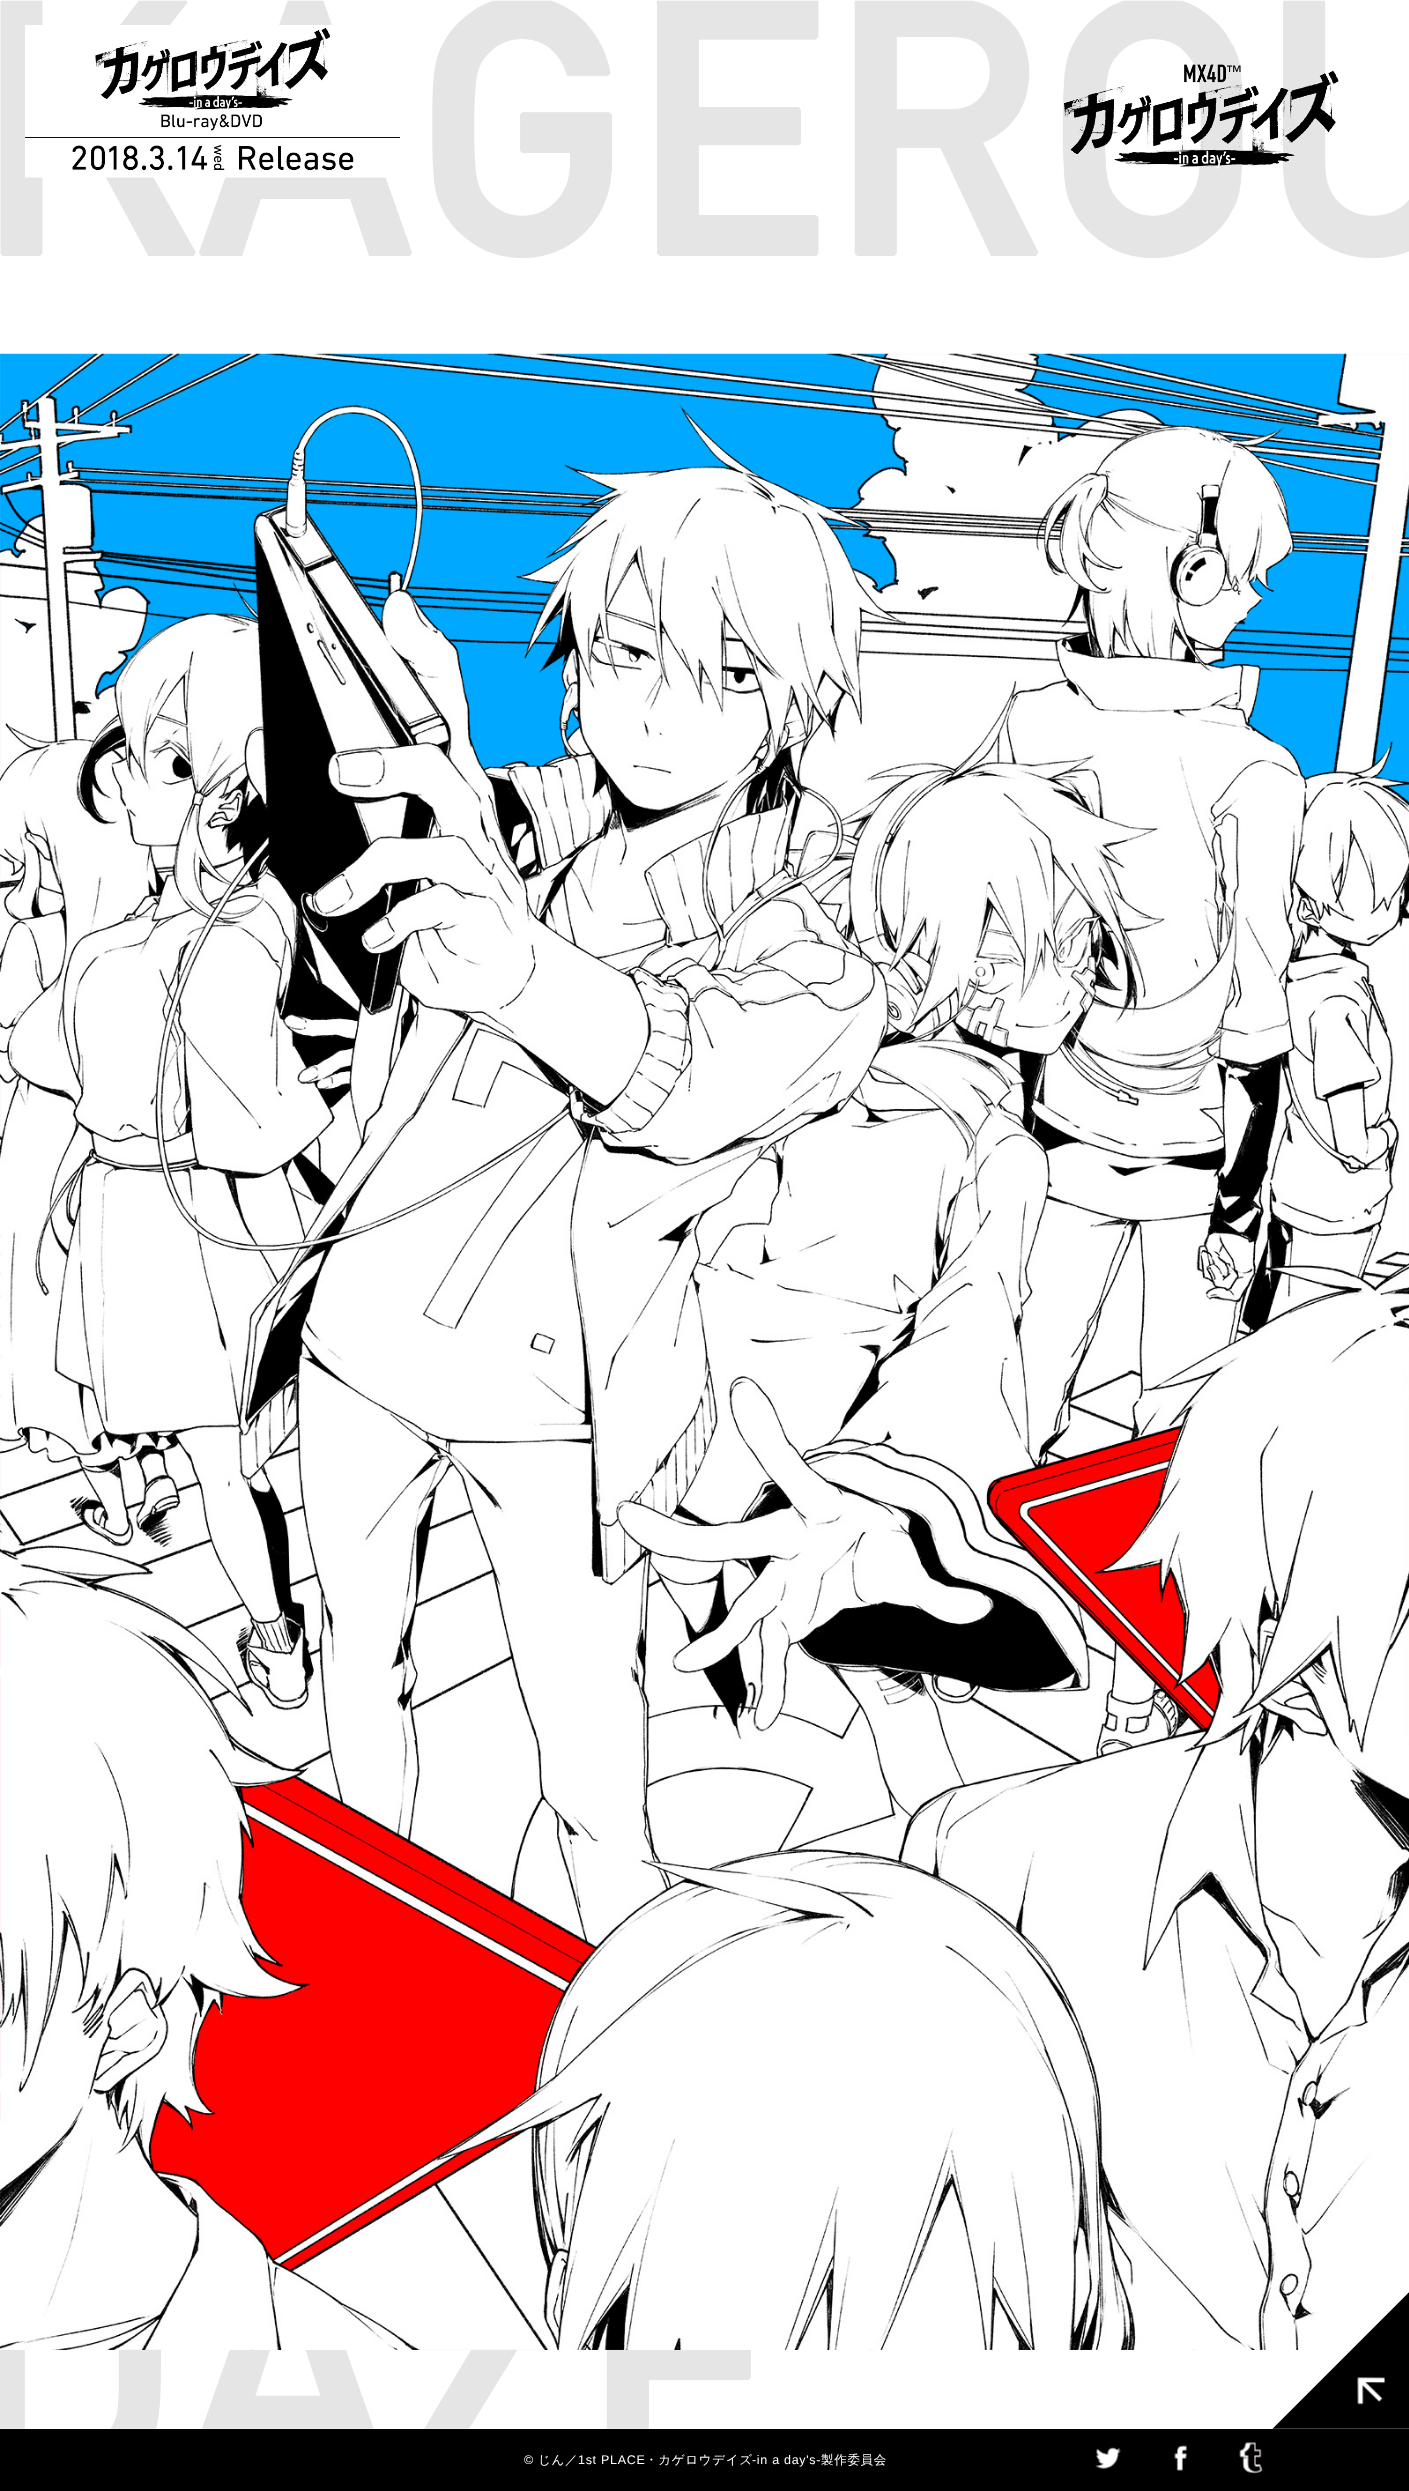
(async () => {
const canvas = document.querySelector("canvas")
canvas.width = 1409
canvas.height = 2491
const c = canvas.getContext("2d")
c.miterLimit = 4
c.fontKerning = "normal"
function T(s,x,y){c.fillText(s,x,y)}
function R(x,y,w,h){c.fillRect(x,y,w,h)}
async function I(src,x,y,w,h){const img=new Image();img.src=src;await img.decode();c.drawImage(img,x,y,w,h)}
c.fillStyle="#fff"
R(0,0,1409,2491)
await I("1.png",0,0,1409,2429)
await I("2.png",25,25,375,153)
await I("3.png",0,353,1409,1997)
await I("4.png",1063,64,276,105)
await I("5.png",1272,2292,137,137)
await I("6.png",1357,2377,29,28)
c.fillStyle="#000"
R(0,2429,1409,62)
c.letterSpacing="0.7px"
c.font="12.5px Liberation Sans"
c.fillStyle="#fff"
T("©",524,2464)
c.font="500 12.5px WenQuanYi Zen Hei"
T("じん／",538,2464)
c.font="12.5px Liberation Sans"
T("1st PLACE",578,2464)
c.font="500 12.5px WenQuanYi Zen Hei"
T("・カゲロウデイズ",645,2464)
c.font="12.5px Liberation Sans"
T("-in a day's-",752,2464)
c.font="500 12.5px WenQuanYi Zen Hei"
T("製作委員会",821,2464)
await I("7.png",1095,2447,26,22)
await I("8.png",1174,2445,13,26)
await I("9.png",1239,2442,24,32)
})()
